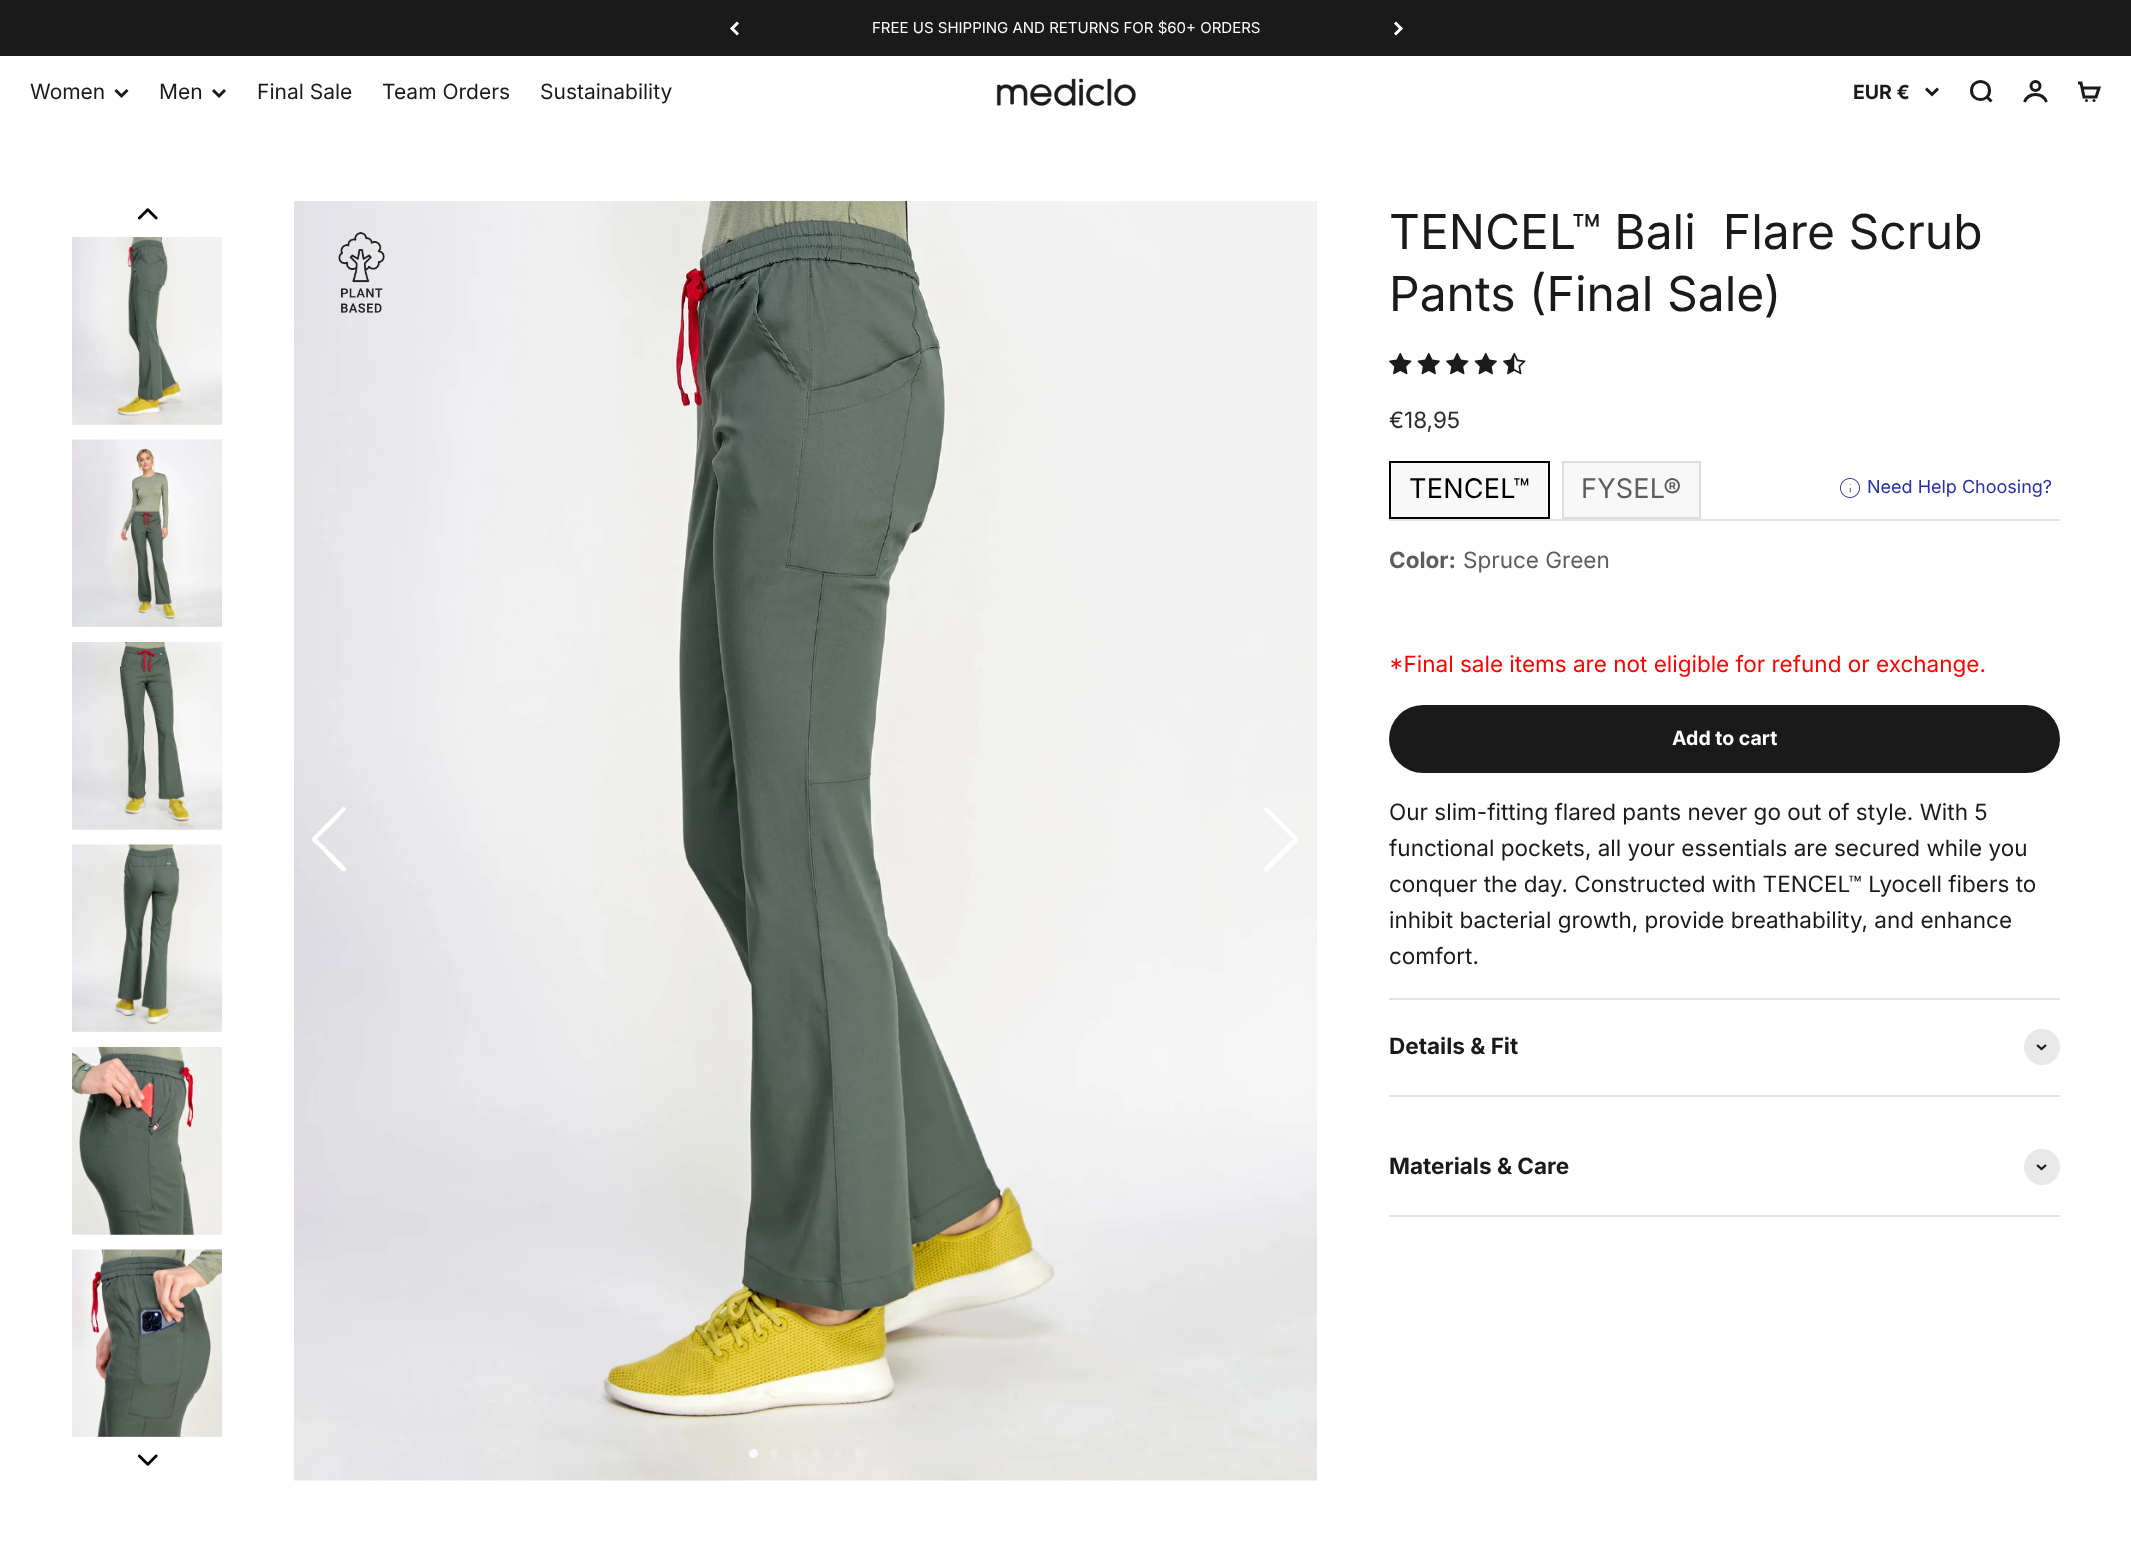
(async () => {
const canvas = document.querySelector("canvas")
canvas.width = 2131
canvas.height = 1551
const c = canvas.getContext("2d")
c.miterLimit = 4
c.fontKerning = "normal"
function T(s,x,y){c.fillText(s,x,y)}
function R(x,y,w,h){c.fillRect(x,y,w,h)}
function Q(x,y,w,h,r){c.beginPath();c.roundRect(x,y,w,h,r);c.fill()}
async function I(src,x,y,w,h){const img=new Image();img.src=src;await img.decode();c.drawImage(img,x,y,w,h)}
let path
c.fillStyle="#fff"
R(0,0,2131,1551)
c.fillStyle="#1a1a1a"
R(0,0,2131,56)
path = new Path2D("M738 22.5l-6 6l6 6")
c.strokeStyle="#fff"
c.lineWidth=3
c.stroke(path)
c.font="15px Inter"
c.fillStyle="#fff"
T("FREE US SHIPPING AND RETURNS FOR $60+ ORDERS",872,33)
path = new Path2D("M1395 34.5l6-6l-6-6")
c.stroke(path)
c.font="21px Inter"
c.fillStyle="#1a1a1a"
T("Women",30,99)
path = new Path2D("M115.5 90l6 6l6-6")
c.strokeStyle="#1a1a1a"
c.stroke(path)
T("Men",159,99)
path = new Path2D("M213 90l6 6l6-6")
c.stroke(path)
T("Final Sale",257,99)
T("Team Orders",382,99)
T("Sustainability",540,99)
await I("1.png",996,78,141,29)
c.font="bold 19.5px Inter"
T("EUR €",1853,99)
path = new Path2D("M1926 88.5l6 6l6-6")
c.stroke(path)
path = new Path2D("M1971.5 90.5c0 12 18 12 18 0c0-12-18-12-18 0zm15.5 6.5l4.5 4.5")
c.stroke(path)
path = new Path2D("M2046.5 102c-4-10-18-10-22 0")
c.stroke(path)
c.beginPath()
c.arc(2035.5,86,4.5,0,7)
c.stroke()
c.save()
c.beginPath()
c.rect(2078,80,24,24)
c.clip()
path = new Path2D("M2077.5 83h3.5l3 14h12l3-9h-16.5")
c.stroke(path)
c.restore()
c.beginPath()
c.arc(2086.5,100.5,1.5,0,7)
c.fill()
c.beginPath()
c.arc(2094,100.5,1.5,0,7)
c.fill()
await I("2.png",137,208,21,12)
await I("3.png",72,237,150,188)
await I("4.png",72,439,150,188)
await I("5.png",72,642,150,188)
await I("6.png",72,844,150,188)
await I("7.png",72,1047,150,188)
await I("8.png",72,1249,150,188)
await I("9.png",137,1454,21,12)
await I("10.png",294,201,1023,1280)
await I("11.png",338,232,47,81)
c.fillStyle="#fff"
path = new Path2D("M342 808c1-2 4-1 4 1c0 2-26 27-29 30l29 29v2c-1 4-6-1-9-4l-19-20c-8-7-8-6 0-14z")
c.fill(path)
path = new Path2D("M1265 871c-1-1-1-2 0-4l28-28l-28-28c-1-1-1-2 0-3c1-1 2-1 3 0l29 29l1 2l-1 3l-29 29c-1 1-2 1-3 0z")
c.fill(path)
c.fillStyle="#ffffffcc"
c.beginPath()
c.arc(753.5,1453.5,4.5,0,7)
c.fill()
c.fillStyle="#eae9e2"
c.beginPath()
c.arc(774.5,1453.5,4.5,0,7)
c.fill()
c.fillStyle="#ffffff29"
c.beginPath()
c.arc(795.5,1453.5,4.5,0,7)
c.fill()
c.beginPath()
c.arc(816.5,1453.5,4.5,0,7)
c.fill()
c.fillStyle="#eae8e5"
c.beginPath()
c.arc(837.5,1453.5,4.5,0,7)
c.fill()
c.fillStyle="#ffffff29"
c.beginPath()
c.arc(858.5,1453.5,4.5,0,7)
c.fill()
c.font="48px Inter"
c.fillStyle="#1a1a1a"
T("TENCEL™ Bali  Flare Scrub",1389,249)
T("Pants (Final Sale)",1389,311)
await I("12.png",1389,352,23,23)
await I("13.png",1417,352,23,23)
await I("12.png",1446,352,23,23)
await I("13.png",1474,352,23,23)
await I("14.png",1503,352,23,23)
c.font="22.5px Inter"
c.fillStyle="#2b2b2b"
T("€18,95",1389,428)
c.fillStyle="#e4e4e4"
R(1389,519,671,2)
c.fillStyle="#f8f8f8"
c.beginPath()
c.rect(1390,462,159,56)
c.fill()
c.strokeStyle="#000"
c.lineWidth=2
c.stroke()
c.letterSpacing="0.25px"
c.font="27px Inter"
c.fillStyle="#000"
T("TENCEL™",1409,498)
c.fillStyle="#f8f8f8"
c.beginPath()
c.rect(1563,462,137,56)
c.fill()
c.strokeStyle="#ddd"
c.stroke()
c.fillStyle="#5d5d5d"
T("FYSEL®",1581,498)
await I("15.png",1840,478,20,20)
c.letterSpacing="0px"
c.font="18px Inter"
c.fillStyle="#2930a3"
T("Need Help Choosing?",1867,493)
c.font="bold 22.5px Inter"
c.fillStyle="#5d5d5d"
T("Color:",1389,568)
c.font="22.5px Inter"
T("Spruce Green",1463,568)
c.fillStyle="#f00"
T("*Final sale items are not eligible for refund or exchange.",1389,672)
c.fillStyle="#1a1a1a"
Q(1389,705,671,68,34)
c.font="bold 19.5px Inter"
c.fillStyle="#fff"
T("Add to cart",1672,745)
c.font="22.5px Inter"
c.fillStyle="#1a1a1a"
T("Our slim-fitting flared pants never go out of style. With 5",1389,820)
T("functional pockets, all your essentials are secured while you",1389,856)
T("conquer the day. Constructed with TENCEL™ Lyocell fibers to",1389,892)
T("inhibit bacterial growth, provide breathability, and enhance",1389,928)
T("comfort.",1389,964)
c.fillStyle="#e4e4e4"
R(1389,998,671,2)
R(1389,1095,671,2)
c.font="bold 22.5px Inter"
c.fillStyle="#1a1a1a"
T("Details & Fit",1389,1054)
c.fillStyle="#e8e8e8"
c.beginPath()
c.arc(2042,1047,18,0,7)
c.fill()
path = new Path2D("M2037 1045l4.5 4l4.5-4")
c.strokeStyle="#1a1a1a"
c.lineWidth=2.2
c.stroke(path)
c.fillStyle="#e4e4e4"
R(1389,1215,671,2)
c.fillStyle="#1a1a1a"
T("Materials & Care",1389,1174)
c.fillStyle="#e8e8e8"
c.beginPath()
c.arc(2042,1167,18,0,7)
c.fill()
path = new Path2D("M2037 1165l4.5 4l4.5-4")
c.stroke(path)
})()
